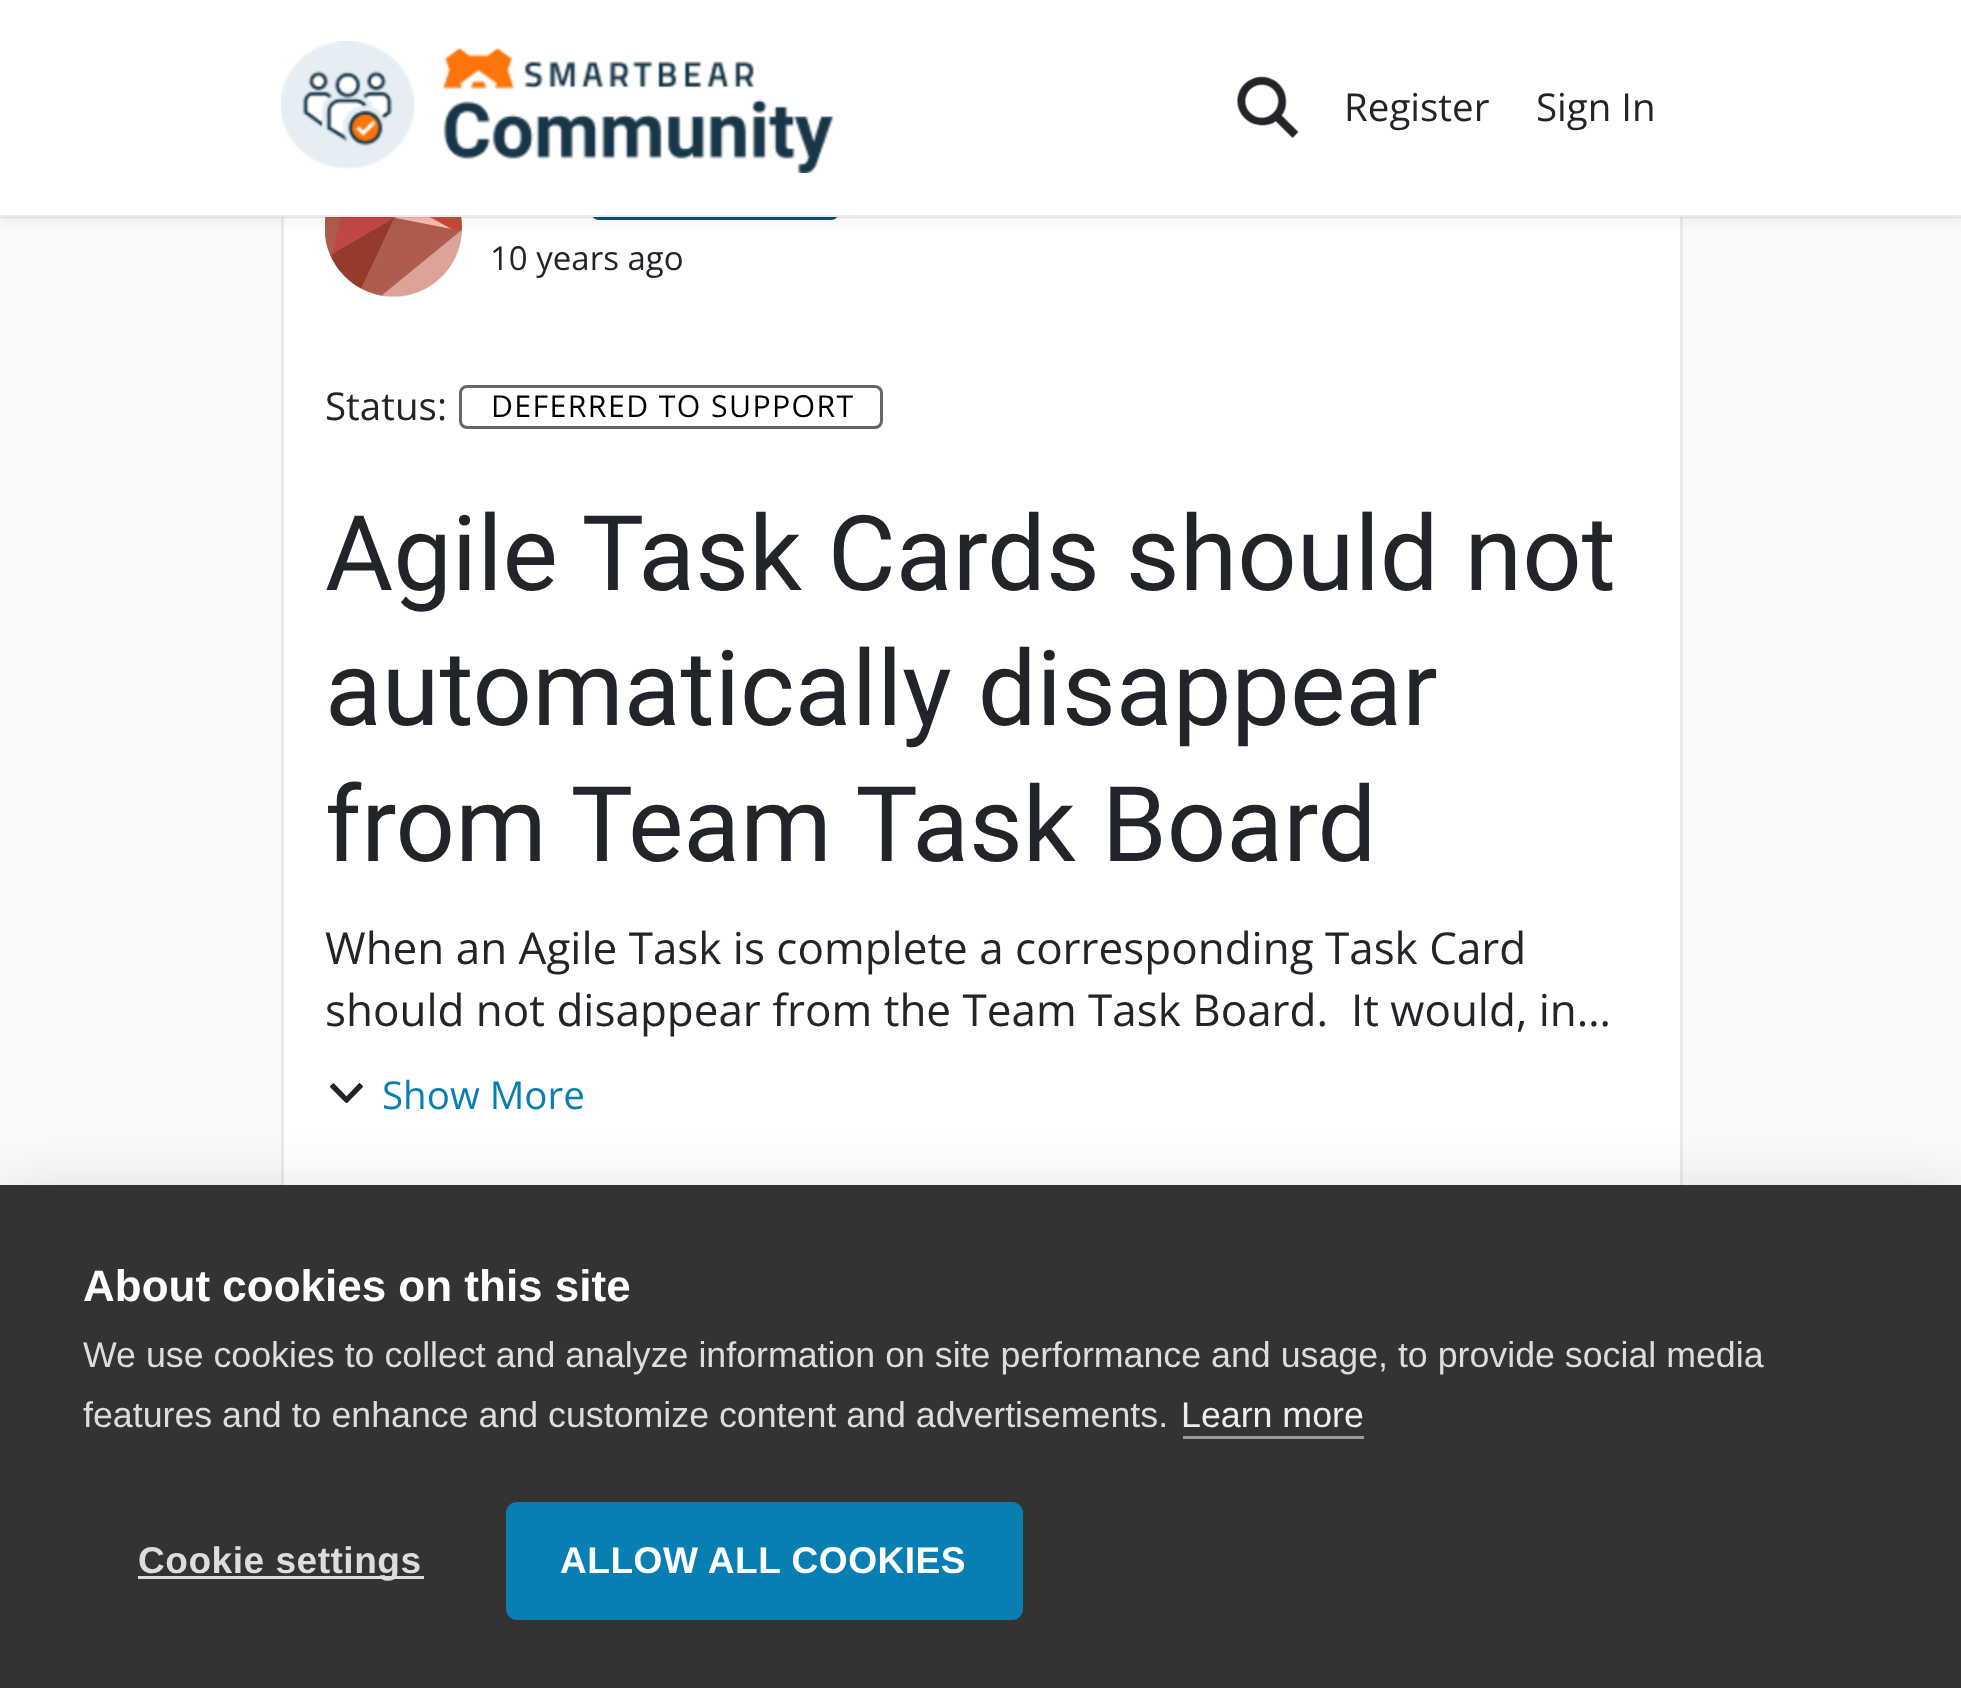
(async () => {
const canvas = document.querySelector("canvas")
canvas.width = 1961
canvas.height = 1688
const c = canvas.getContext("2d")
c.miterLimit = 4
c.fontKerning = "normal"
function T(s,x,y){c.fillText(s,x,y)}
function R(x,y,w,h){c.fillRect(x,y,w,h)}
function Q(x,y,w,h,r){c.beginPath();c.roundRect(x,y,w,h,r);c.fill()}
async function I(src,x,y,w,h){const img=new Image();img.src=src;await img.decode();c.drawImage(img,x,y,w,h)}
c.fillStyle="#f8fafb"
R(0,0,1961,1688)
c.fillStyle="#fff"
R(281,217,1402,968)
c.strokeStyle="#00000014"
c.lineWidth=3
c.strokeRect(282.5,117.5,1399,1245)
c.fillStyle="#d9d9d9"
c.beginPath()
c.arc(393.5,228.5,68.5,0,7)
c.fill()
await I("3.png",325,217,137,80)
c.beginPath()
c.roundRect(592.5,177.5,245,41,6.5)
c.strokeStyle="#00537c"
c.stroke()
c.fillStyle="#3333330f"
c.filter="blur(5.5px)"
c.beginPath()
c.rect(0,6,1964,217)
c.fill()
c.filter="none"
c.fillStyle="#fff"
R(0,0,1961,217)
c.fillStyle="#00000014"
R(0,215,1961,3)
await I("1.png",281,41,553,132)
await I("2.png",1237,76,62,63)
c.font="38.5px Open Sans"
c.fillStyle="#212429"
T("Register",1344,121)
T("Sign In",1536,121)
c.font="33px Open Sans"
T("10 years ago",490,270)
c.font="38.5px Open Sans"
T("Status:",325,420)
c.beginPath()
c.roundRect(460.5,386.5,421,41,6.5)
c.strokeStyle="#666"
c.stroke()
c.letterSpacing="1.4px"
c.font="30.25px Open Sans"
c.fillStyle="#000"
T("DEFERRED TO SUPPORT",491,417)
c.letterSpacing="0px"
c.font="104.5px Roboto"
c.fillStyle="#212429"
T("Agile Task Cards should not",325,590)
T("automatically disappear",325,725)
T("from Team Task Board",325,861)
c.font="44px Open Sans"
T("When an Agile Task is complete a corresponding Task Card",325,964)
T("should not disappear from the Team Task Board.  It would, in…",325,1026)
await I("4.png",330,1083,33,20)
c.font="38.5px Open Sans"
c.fillStyle="#097eb2"
T("Show More",382,1109)
c.fillStyle="#0000001a"
c.filter="blur(27.5px)"
c.beginPath()
c.rect(0,1185,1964,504)
c.fill()
c.filter="none"
c.fillStyle="#333"
R(0,1185,1961,503)
c.font="bold 44px Liberation Sans"
c.fillStyle="#fff"
T("About cookies on this site",83,1301)
c.font="35.75px Liberation Sans"
c.fillStyle="#ddd"
T("We use cookies to collect and analyze information on site performance and usage, to provide social media",83,1367)
T("features and to enhance and customize content and advertisements.",83,1427)
c.fillStyle="#eee"
T("Learn more",1181,1427)
c.fillStyle="#999"
R(1183,1436,181,3)
c.fillStyle="#ddd"
R(138,1576,286,3)
c.letterSpacing="0.5px"
c.font="bold 37.1px Liberation Sans"
T("Cookie settings",138,1573)
c.fillStyle="#097eb2"
Q(506,1502,517,118,11)
c.fillStyle="#fff"
T("ALLOW ALL COOKIES",560,1573)
})()
